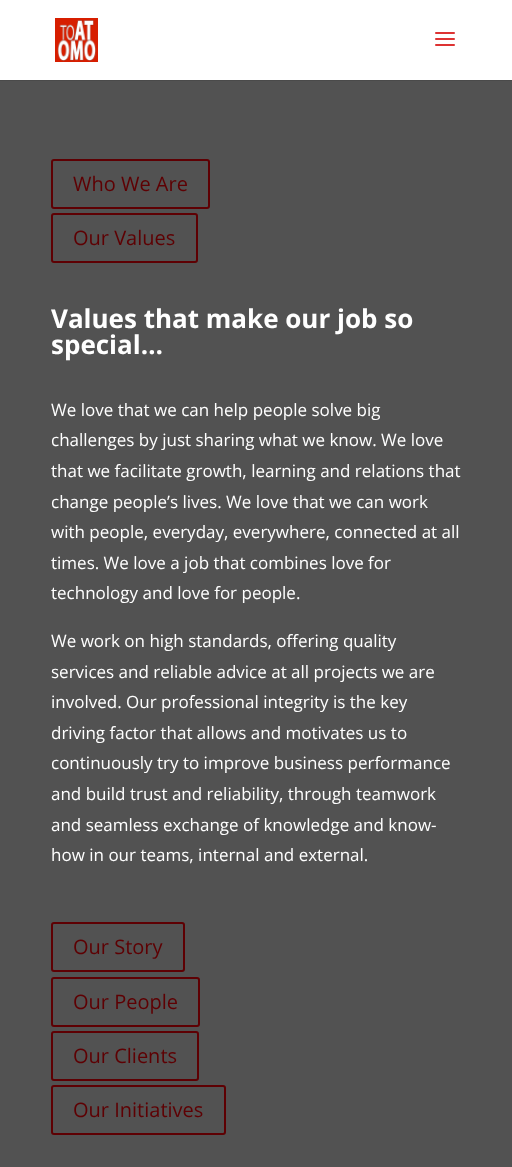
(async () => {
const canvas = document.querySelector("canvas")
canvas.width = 512
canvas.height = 1167
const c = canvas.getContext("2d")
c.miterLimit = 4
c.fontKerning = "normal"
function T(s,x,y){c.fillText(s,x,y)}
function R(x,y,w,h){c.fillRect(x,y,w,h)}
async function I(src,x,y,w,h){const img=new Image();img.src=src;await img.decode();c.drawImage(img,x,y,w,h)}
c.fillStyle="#525252"
R(0,0,512,1167)
c.fillStyle="#4a4a4a"
R(0,80,512,1)
c.fillStyle="#fff"
R(0,0,512,80)
await I("1.png",55,18,43,44)
await I("2.png",435,32,20,14)
c.beginPath()
c.roundRect(52,160,157,48,2)
c.strokeStyle="#5e0003"
c.lineWidth=2
c.stroke()
c.font="20px Open Sans"
c.fillStyle="#5e0003"
T("Who We Are",73,191)
c.beginPath()
c.roundRect(52,214,145,48,2)
c.stroke()
T("Our Values",73,245)
c.font="bold 26px Open Sans"
c.fillStyle="#fff"
T("Values that make our job so",51,328)
T("special…",51,354)
c.font="17px Open Sans"
T("We love that we can help people solve big",51,416)
T("challenges by just sharing what we know. We love",51,446)
T("that we facilitate growth, learning and relations that",51,477)
T("change people’s lives. We love that we can work",51,508)
T("with people, everyday, everywhere, connected at all",51,538)
T("times. We love a job that combines love for",51,569)
T("technology and love for people.",51,599)
T("We work on high standards, offering quality",51,647)
T("services and reliable advice at all projects we are",51,678)
T("involved. Our professional integrity is the key",51,708)
T("driving factor that allows and motivates us to",51,739)
T("continuously try to improve business performance",51,769)
T("and build trust and reliability, through teamwork",51,800)
T("and seamless exchange of knowledge and know-",51,831)
T("how in our teams, internal and external.",51,861)
c.beginPath()
c.roundRect(52,923,132,48,2)
c.stroke()
c.font="20px Open Sans"
c.fillStyle="#5e0003"
T("Our Story",73,954)
c.beginPath()
c.roundRect(52,978,147,48,2)
c.stroke()
T("Our People",73,1009)
c.beginPath()
c.roundRect(52,1032,146,48,2)
c.stroke()
T("Our Clients",73,1063)
c.beginPath()
c.roundRect(52,1086,173,48,2)
c.stroke()
T("Our Initiatives",73,1117)
})()
